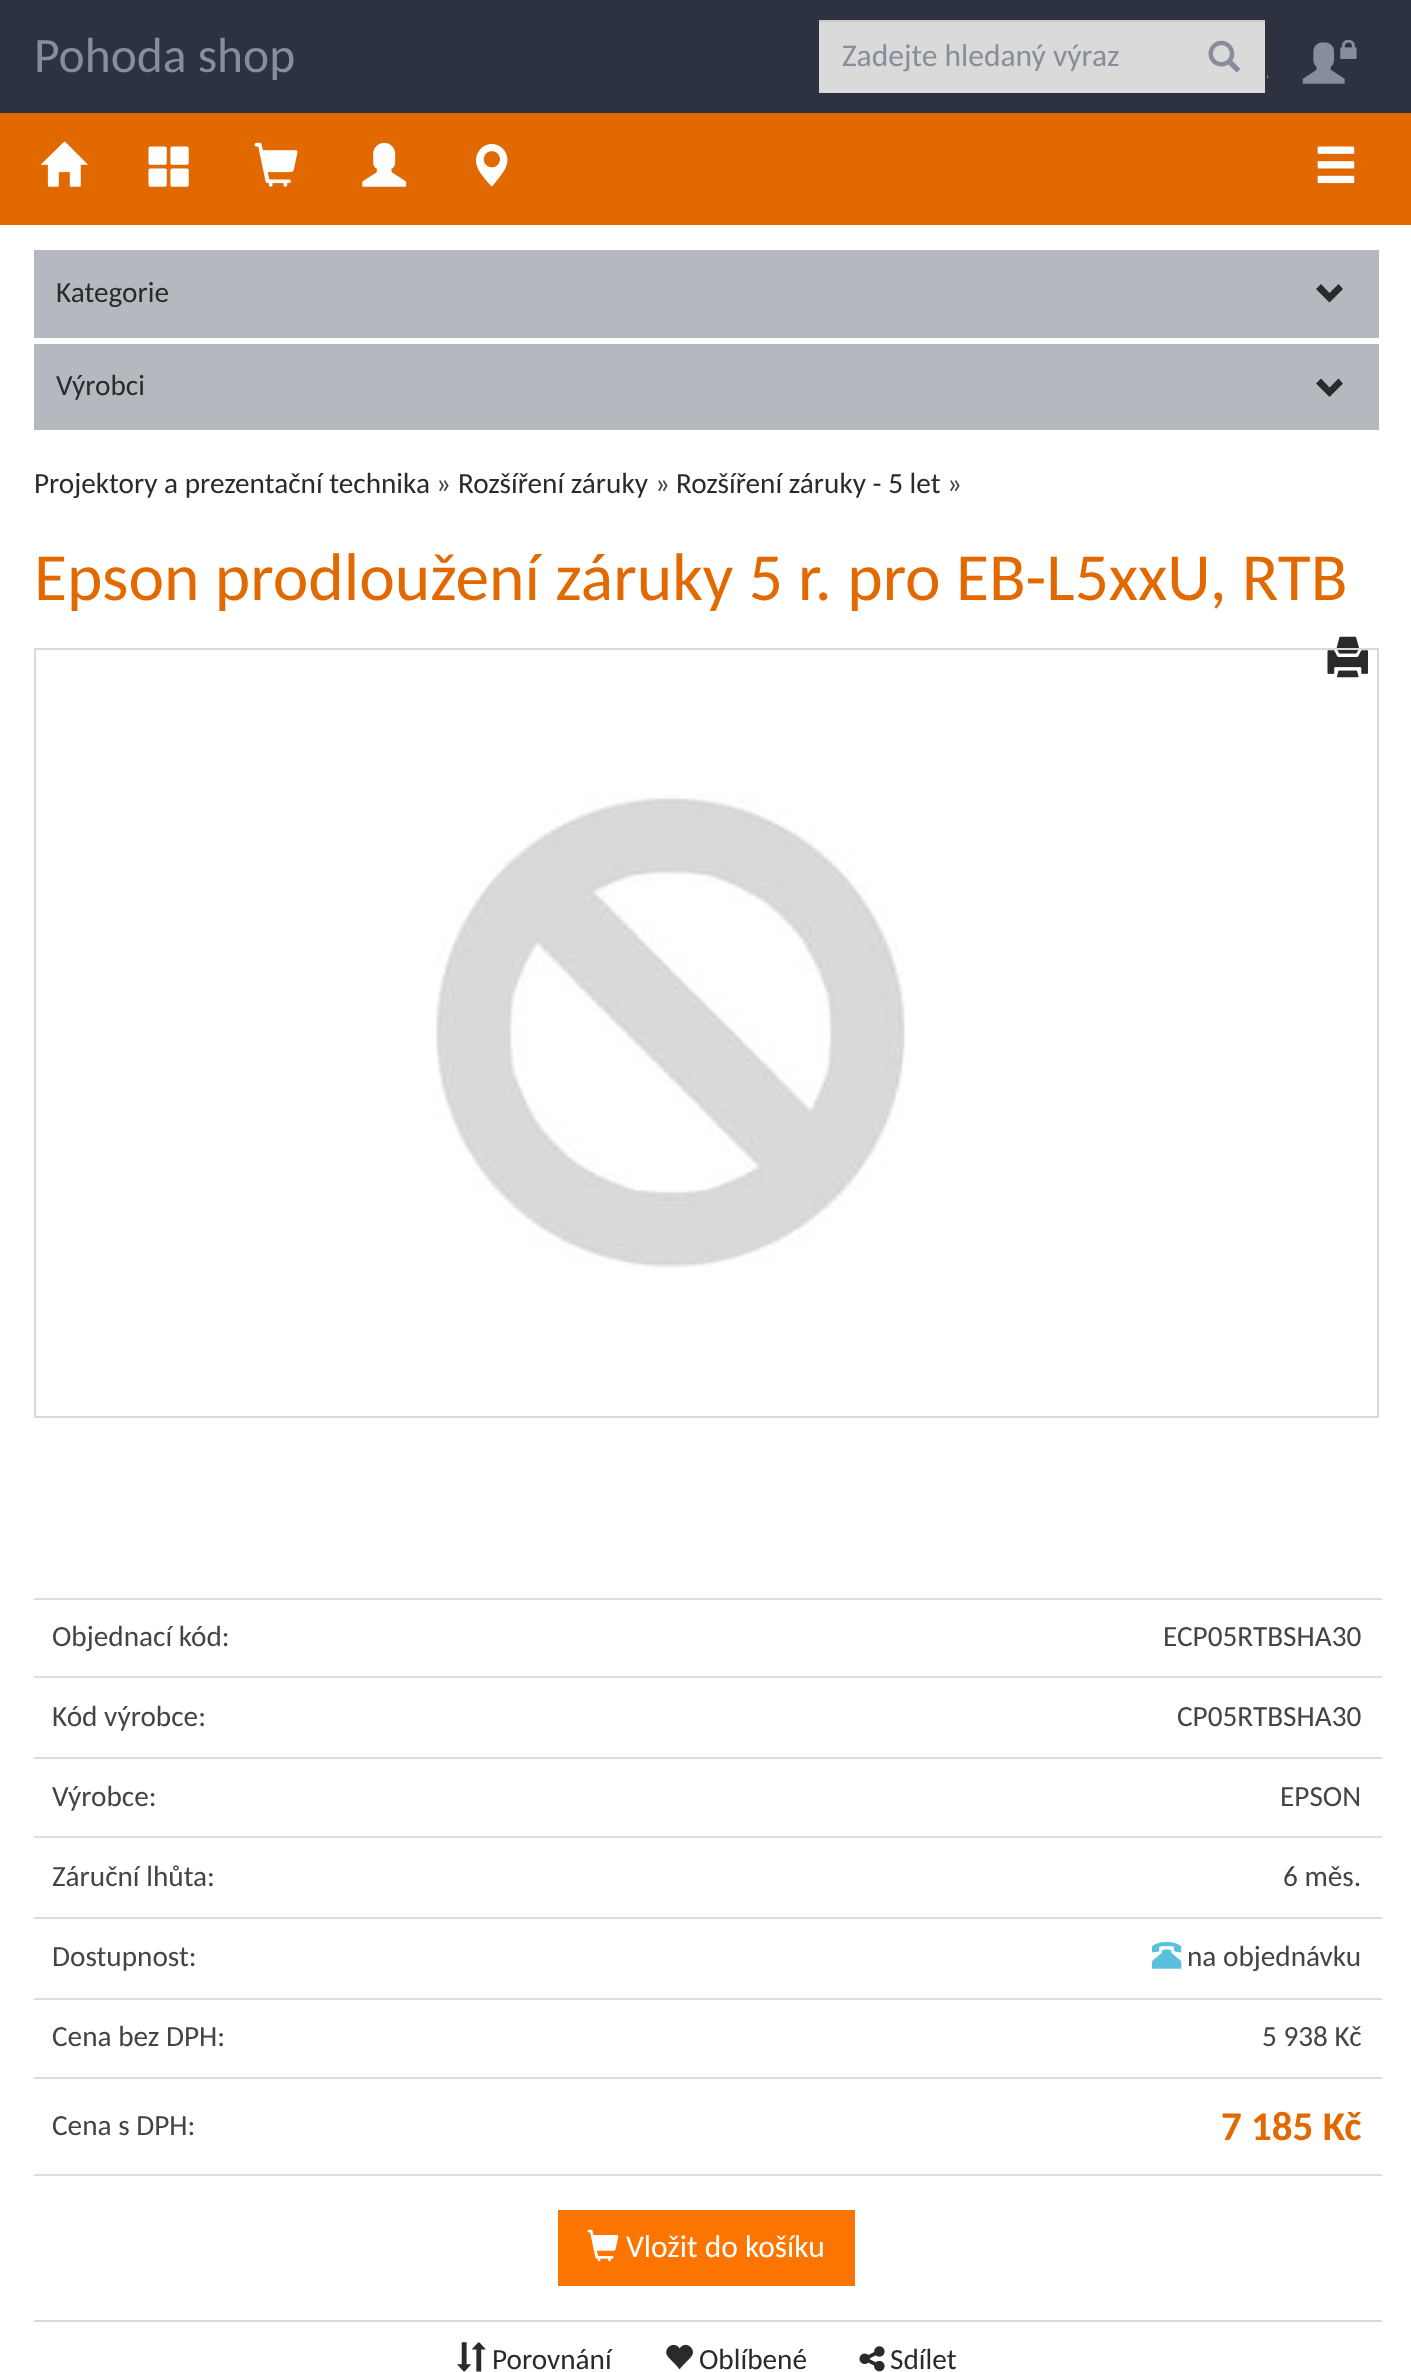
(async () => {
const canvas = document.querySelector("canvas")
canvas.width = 1411
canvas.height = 2372
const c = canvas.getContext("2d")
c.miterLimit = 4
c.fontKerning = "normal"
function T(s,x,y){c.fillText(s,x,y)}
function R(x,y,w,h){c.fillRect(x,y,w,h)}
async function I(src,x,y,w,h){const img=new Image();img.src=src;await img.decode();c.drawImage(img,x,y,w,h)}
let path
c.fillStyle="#fff"
R(0,0,1411,2372)
c.fillStyle="#2c323f"
R(0,0,1411,113)
c.font="49.5px Carlito"
c.fillStyle="#888d9b"
T("Pohoda shop",34,72)
c.fillStyle="#dbdada"
R(819,22,446,71)
c.fillStyle="#cbcaca"
R(819,20,446,2)
c.font="31.5px Carlito"
c.fillStyle="#888d9b"
T("Zadejte hledaný výraz",842,66)
await I("1.png",1208,40,32,33)
await I("2.png",1302,39,55,45)
await I("3.png",1267,75,2,4)
c.fillStyle="#e26900"
R(0,113,1411,112)
await I("4.png",41,141,47,46)
await I("5.png",148,146,41,41)
await I("6.png",254,142,44,45)
await I("7.png",362,142,45,45)
await I("8.png",476,144,32,43)
await I("9.png",1317,146,38,38)
c.fillStyle="#b5b9bf"
R(34,250,1345,88)
c.font="29.25px Carlito"
c.fillStyle="#2a2a2a"
T("Kategorie",56,302)
path = new Path2D("M1343 289l-13.5 13.5l-13.5-13.5l5-5l8.5 9l9-9z")
c.fill(path)
c.fillStyle="#b5b9bf"
R(34,344,1345,86)
c.fillStyle="#2a2a2a"
T("Výrobci",56,395)
path = new Path2D("M1343 383.5l-13.5 13.5l-13.5-13.5l5-5l8.5 9l9-9z")
c.fill(path)
T("Projektory a prezentační technika",34,493)
c.fillStyle="#444"
T("»",436,493)
c.fillStyle="#2a2a2a"
T("Rozšíření záruky",458,493)
c.fillStyle="#444"
T("»",655,493)
c.fillStyle="#2a2a2a"
T("Rozšíření záruky - 5 let",676,493)
c.fillStyle="#444"
T("»",947,493)
c.font="67.5px Carlito"
c.fillStyle="#e26900"
T("Epson prodloužení záruky 5 r. pro EB-L5xxU, RTB",34,600)
await I("10.png",1327,636,41,42)
c.strokeStyle="#d9d9d9"
c.lineWidth=2
c.strokeRect(35,649,1343,768)
await I("11.png",436,795,469,473)
c.font="29.25px Carlito"
c.fillStyle="#444"
T("Objednací kód:",52,1646)
c.fillStyle="#ddd"
R(34,1598,1348,2)
c.fillStyle="#444"
T("ECP05RTBSHA30",1163,1646)
T("Kód výrobce:",52,1726)
c.fillStyle="#ddd"
R(34,1676,1348,2)
c.fillStyle="#444"
T("CP05RTBSHA30",1177,1726)
T("Výrobce:",52,1806)
c.fillStyle="#ddd"
R(34,1757,1348,2)
c.fillStyle="#444"
T("EPSON",1280,1806)
T("Záruční lhůta:",52,1886)
c.fillStyle="#ddd"
R(34,1836,1348,2)
c.fillStyle="#444"
T("6 měs.",1283,1886)
T("Dostupnost:",52,1966)
c.fillStyle="#ddd"
R(34,1917,1348,2)
await I("12.png",1152,1941,30,28)
c.fillStyle="#444"
T("na objednávku",1187,1966)
T("Cena bez DPH:",52,2046)
c.fillStyle="#ddd"
R(34,1998,1348,2)
c.fillStyle="#444"
T("5 938 Kč",1262,2046)
T("Cena s DPH:",52,2135)
c.fillStyle="#ddd"
R(34,2077,1348,2)
c.font="bold 41px Carlito"
c.fillStyle="#e26900"
T("7 185 Kč",1221,2140)
c.fillStyle="#ddd"
R(34,2174,1348,2)
c.fillStyle="#fb7500"
R(558,2210,297,76)
await I("13.png",587,2229,32,33)
c.font="31.5px Carlito"
c.fillStyle="#fff"
T("Vložit do košíku",626,2257)
c.fillStyle="#d9d9d9"
R(34,2320,1348,2)
await I("14.png",457,2342,29,30)
c.font="29.25px Carlito"
c.fillStyle="#2a2a2a"
T("Porovnání",492,2369)
await I("15.png",666,2344,27,26)
T("Oblíbené",699,2369)
await I("16.png",859,2346,26,26)
T("Sdílet",890,2369)
})()
